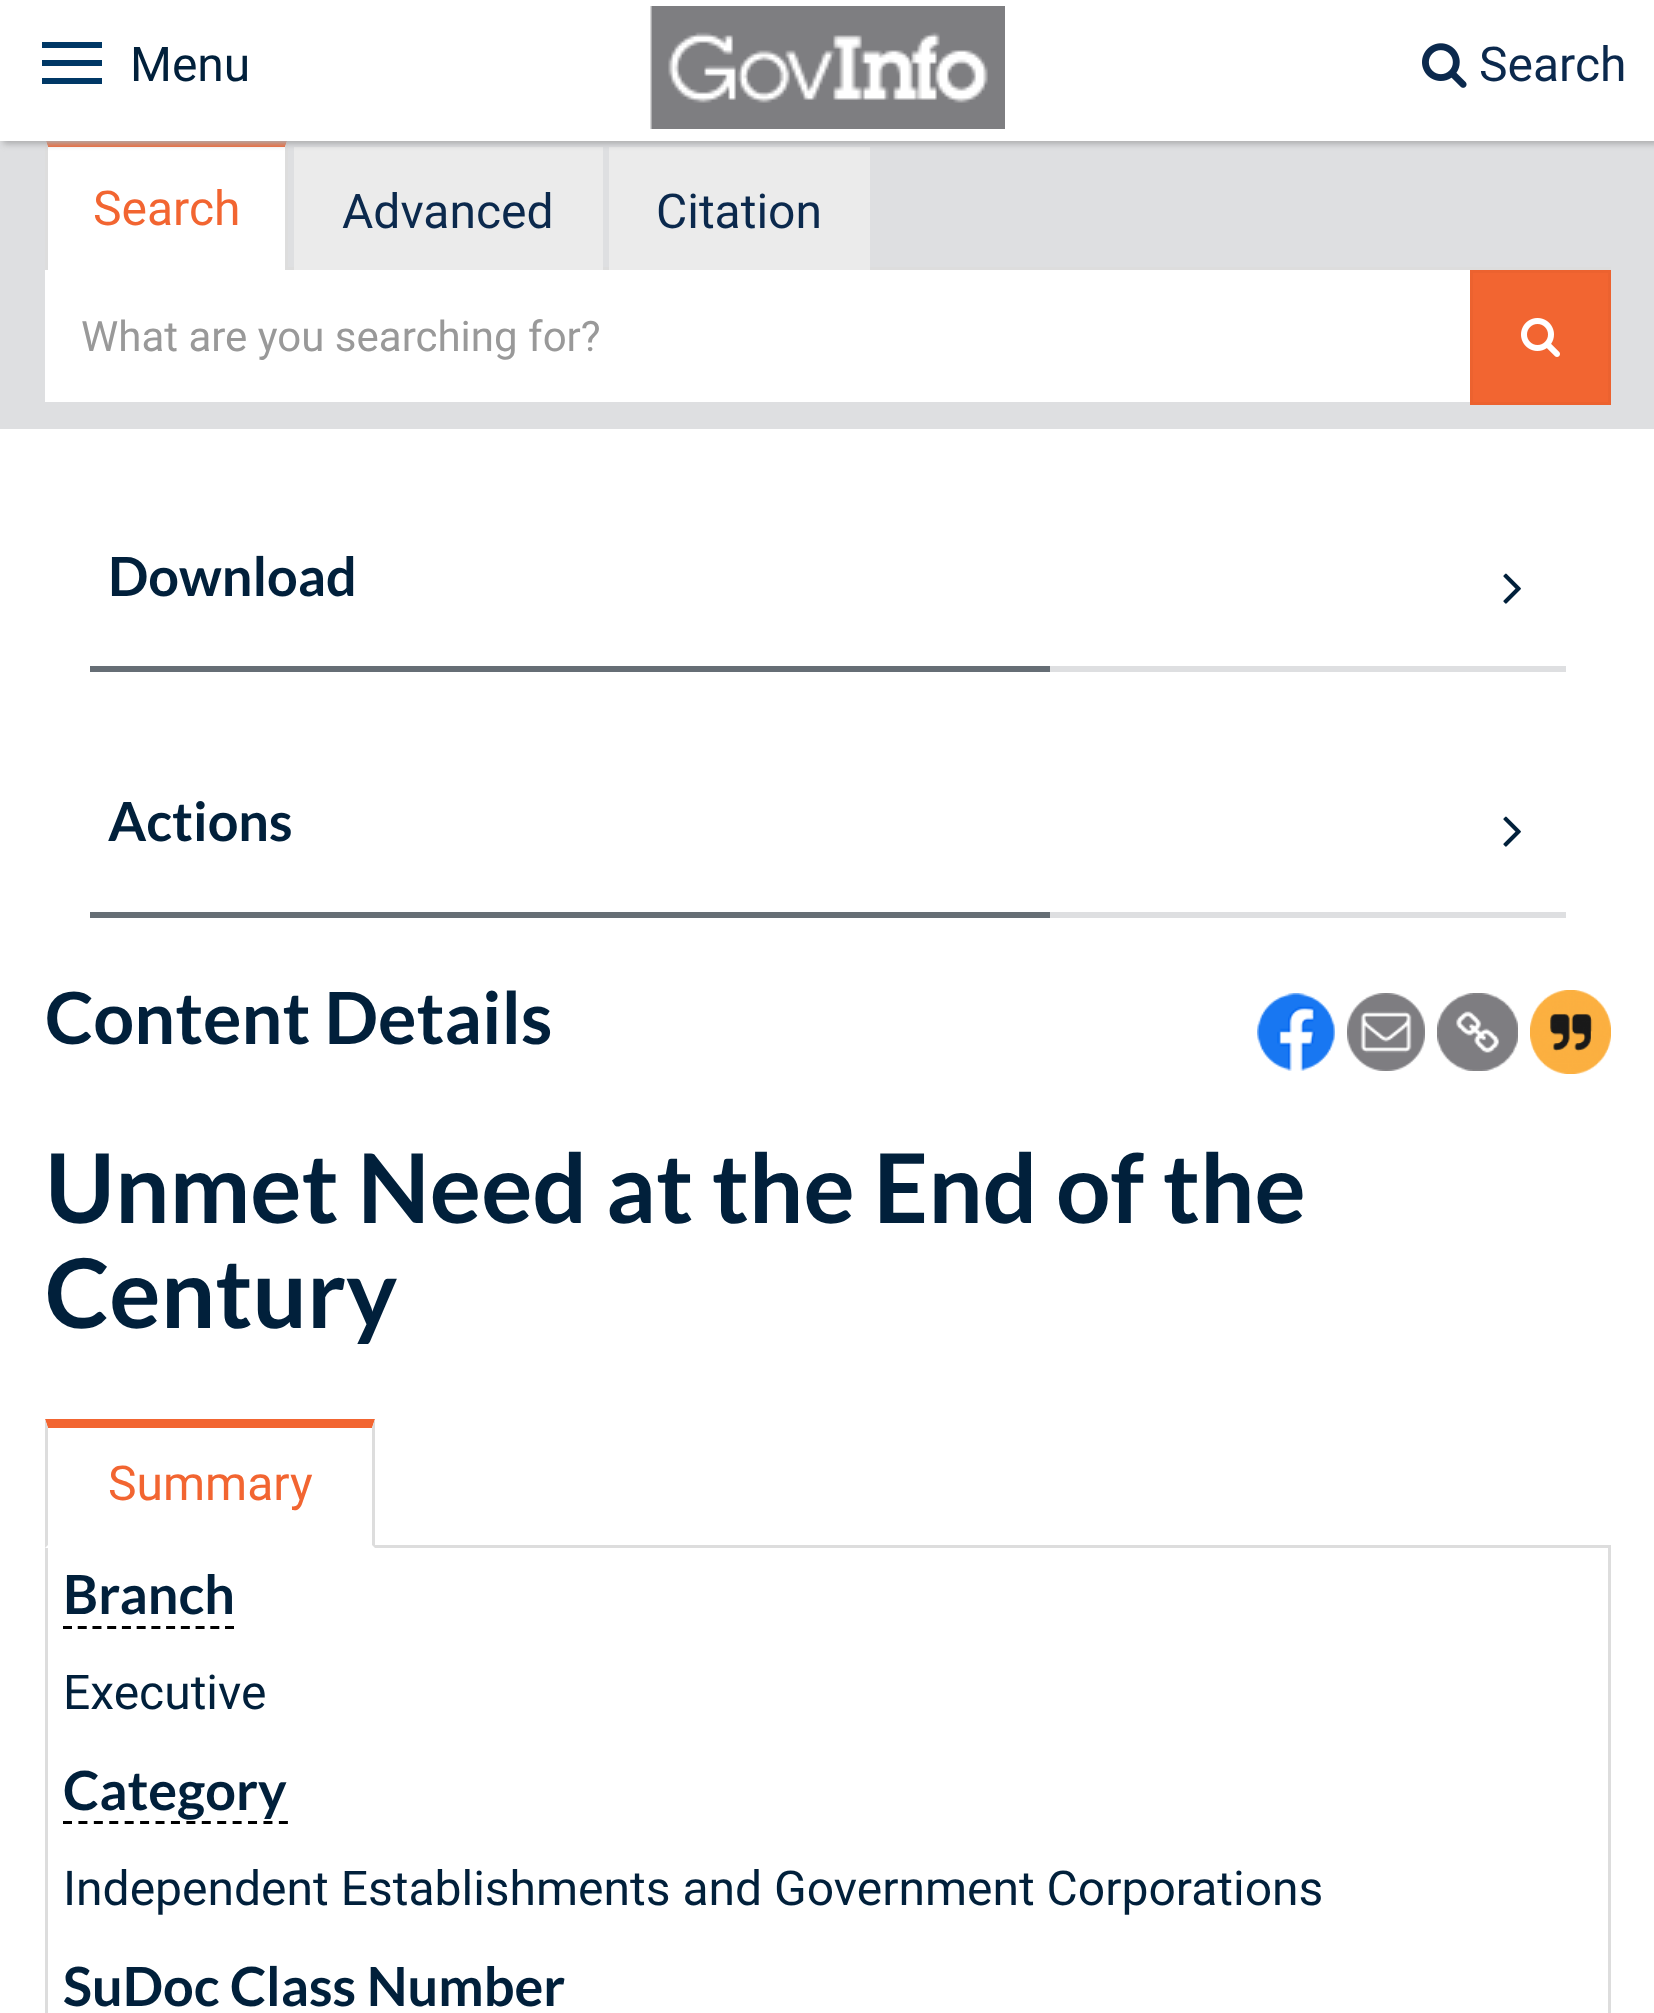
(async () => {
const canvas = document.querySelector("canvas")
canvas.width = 1654
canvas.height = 2013
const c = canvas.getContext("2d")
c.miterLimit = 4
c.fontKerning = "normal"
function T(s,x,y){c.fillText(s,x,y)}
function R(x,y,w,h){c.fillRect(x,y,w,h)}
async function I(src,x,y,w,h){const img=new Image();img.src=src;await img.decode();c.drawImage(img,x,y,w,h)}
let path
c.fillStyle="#fff"
R(0,0,1654,2013)
c.fillStyle="#dedfe1"
R(0,141,1654,288)
c.fillStyle="#fff"
R(46,141,241,129)
c.fillStyle="#f26531"
path = new Path2D("M45 138h243l-3 9h-237z")
c.fill(path)
c.fillStyle="#ddd"
path = new Path2D("M288 138v141l-3-3v-129z")
c.fill(path)
path = new Path2D("M45 279v-141l3 9v129z")
c.fill(path)
R(288,267,1323,3)
c.fillStyle="#ebebeb"
R(294,147,309,123)
R(609,147,261,123)
c.fillStyle="#acacae"
c.filter="blur(3px)"
c.beginPath()
c.rect(3,0,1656,144)
c.fill()
c.filter="none"
c.fillStyle="#fff"
R(0,0,1654,141)
c.fillStyle="#003866"
R(42,42,60,6)
R(42,60,60,6)
R(42,78,60,6)
c.font="48px Roboto"
c.fillStyle="#01203b"
T("Menu",130,81)
await I("1.png",650,6,355,123)
await I("2.png",1422,43,45,45)
c.fillStyle="#0b294d"
T("Search",1479,81)
c.fillStyle="#f26531"
T("Search",93,225)
c.fillStyle="#0b294d"
T("Advanced",342,228)
T("Citation",656,228)
c.fillStyle="#fff"
R(45,270,1425,132)
c.font="42px Roboto"
c.fillStyle="#999"
T("What are you searching for?",81,351)
c.fillStyle="#f26531"
c.beginPath()
c.rect(1471.5,271.5,138,132)
c.fill()
c.strokeStyle="#ec622f"
c.lineWidth=3
c.stroke()
await I("3.png",1521,318,39,39)
c.fillStyle="#dedfe1"
R(1050,666,516,6)
c.font="bold 54px Lato"
c.fillStyle="#01203b"
T("Download",108,596)
await I("4.png",1503,573,18,31)
c.fillStyle="#666e75"
R(90,666,960,6)
c.fillStyle="#dedfe1"
R(1050,912,516,6)
c.fillStyle="#01203b"
T("Actions",108,841)
await I("4.png",1503,816,18,31)
c.fillStyle="#666e75"
R(90,912,960,6)
c.font="bold 72px Lato"
c.fillStyle="#01203b"
T("Content Details",45,1044)
await I("5.png",1257,993,78,78)
await I("6.png",1347,993,78,78)
await I("7.png",1437,993,81,78)
await I("8.png",1530,990,81,84)
c.font="bold 96px Lato"
T("Unmet Need at the End of the",45,1223)
T("Century",45,1328)
c.fillStyle="#ddd"
R(375,1545,1236,3)
c.fillStyle="#f26531"
path = new Path2D("M45 1419h330l-3 9h-324z")
c.fill(path)
c.fillStyle="#ddd"
path = new Path2D("M375 1419v129l-3-3v-117z")
c.fill(path)
path = new Path2D("M45 1548v-129l3 9v117z")
c.fill(path)
c.font="48px Roboto"
c.fillStyle="#f26531"
T("Summary",108,1500)
c.fillStyle="#ddd"
R(1608,1548,3,465)
R(45,1548,3,465)
c.font="bold 54px Lato"
c.fillStyle="#01203b"
T("Branch",63,1614)
path = new Path2D("M63 1627.5h171")
c.strokeStyle="#000"
c.setLineDash([9,5.73])
c.stroke(path)
c.font="48px Roboto"
T("Executive",63,1709)
c.font="bold 54px Lato"
T("Category",63,1810)
path = new Path2D("M63 1822.5h225")
c.setLineDash([9,6.42])
c.stroke(path)
c.font="48px Roboto"
T("Independent Establishments and Government Corporations",63,1905)
c.font="bold 54px Lato"
T("SuDoc Class Number",63,2006)
})()
